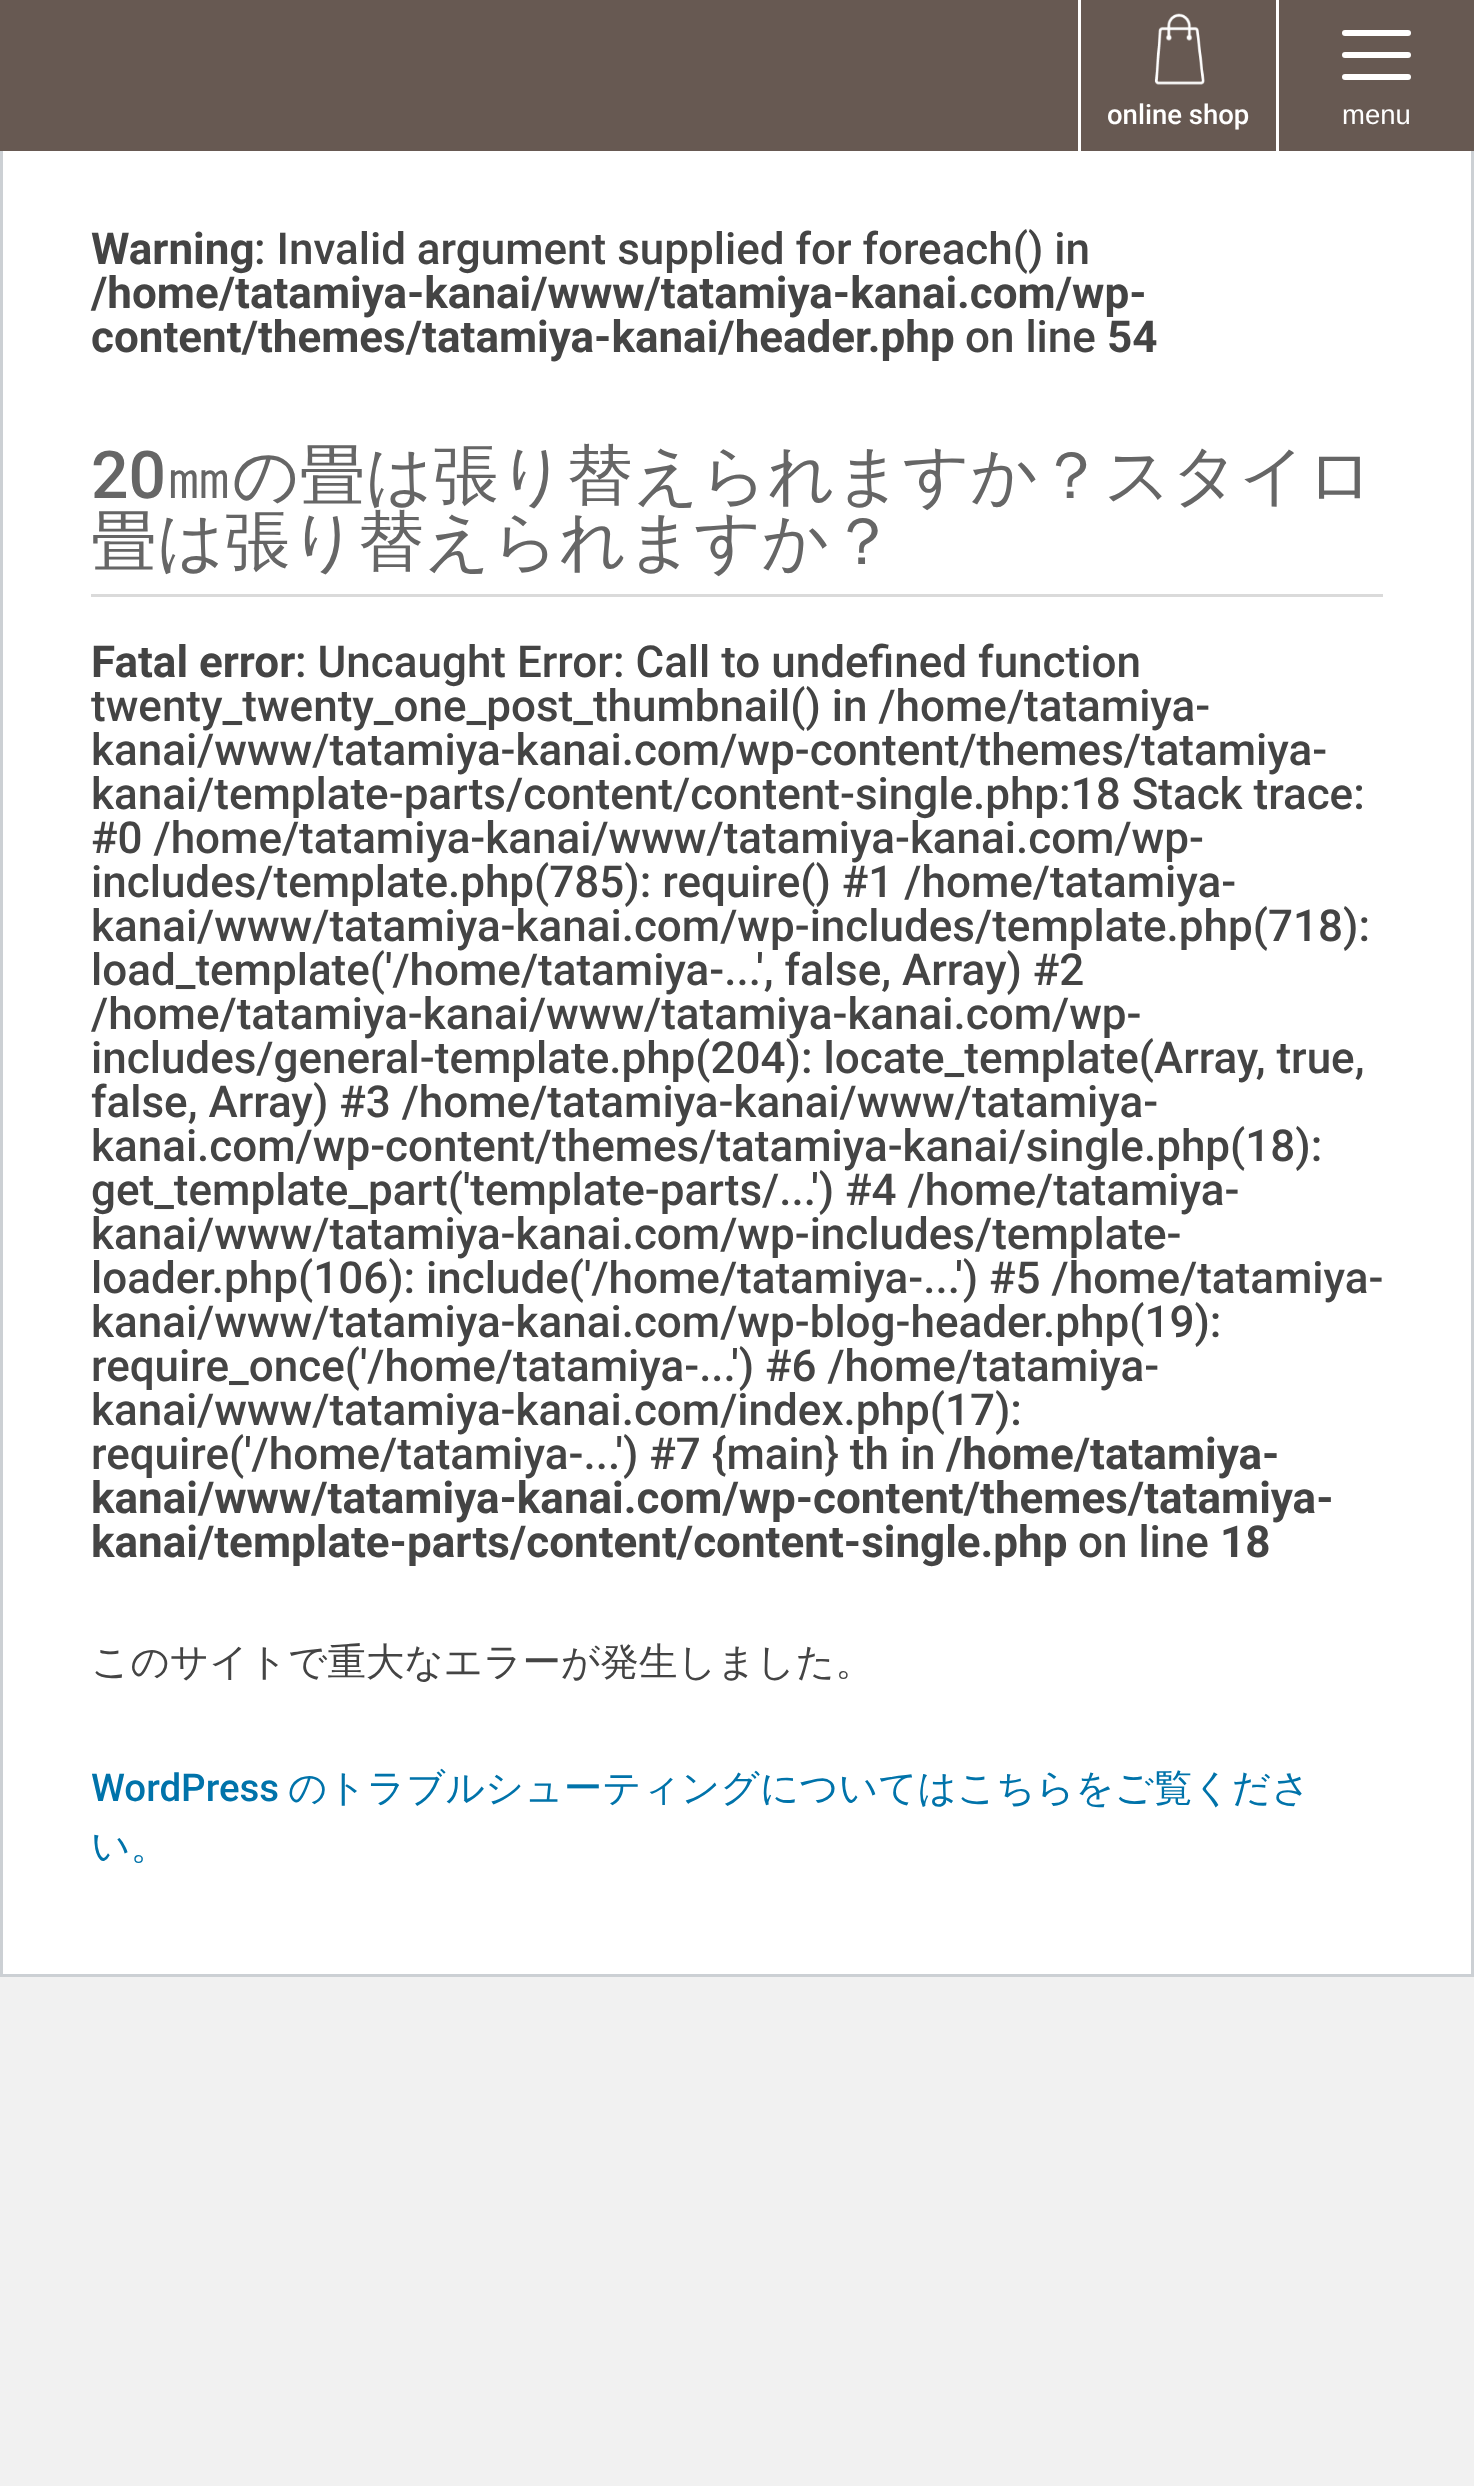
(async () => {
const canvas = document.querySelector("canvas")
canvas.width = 1474
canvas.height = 2486
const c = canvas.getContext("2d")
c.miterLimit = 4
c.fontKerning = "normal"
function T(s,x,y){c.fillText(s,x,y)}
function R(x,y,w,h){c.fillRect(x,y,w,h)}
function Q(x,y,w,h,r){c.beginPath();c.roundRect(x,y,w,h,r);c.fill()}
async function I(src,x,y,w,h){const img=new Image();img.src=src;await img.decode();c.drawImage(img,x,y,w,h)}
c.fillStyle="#f1f1f1"
R(0,0,1474,2486)
c.fillStyle="#fff"
R(3,151,1468,1823)
c.strokeStyle="#ccd0d4"
c.lineWidth=3
c.strokeRect(1.5,139.5,1471,1836)
c.fillStyle="#675952"
R(0,0,1474,151)
c.fillStyle="#fff"
R(1078,0,3,151)
await I("1.png",1154,13,51,72)
c.font="500 27.5px Roboto"
T("online shop",1107,124)
R(1276,0,3,151)
Q(1342,30,69,6,3)
Q(1342,52,69,6,3)
Q(1342,74,69,6,3)
c.font="27.5px Liberation Sans"
T("menu",1342,124)
c.fillStyle="#dadada"
R(91,594,1292,3)
c.font="500 66px Roboto"
c.fillStyle="#666"
T("20",91,498)
c.font="500 66px WenQuanYi Zen Hei"
T("㎜の畳は張り替えられますか？スタイロ",166,498)
T("畳は張り替えられますか？",91,564)
c.font="bold 44px Roboto"
c.fillStyle="#444"
T("Fatal error",91,677)
c.font="500 44px Roboto"
T(": Uncaught Error: Call to undefined function",295,677)
T("twenty_twenty_one_post_thumbnail() in /home/tatamiya-",91,721)
T("kanai/www/tatamiya-kanai.com/wp-content/themes/tatamiya-",91,765)
T("kanai/template-parts/content/content-single.php:18 Stack trace:",91,809)
T("#0 /home/tatamiya-kanai/www/tatamiya-kanai.com/wp-",91,853)
T("includes/template.php(785): require() #1 /home/tatamiya-",91,897)
T("kanai/www/tatamiya-kanai.com/wp-includes/template.php(718):",91,941)
T("load_template('/home/tatamiya-...', false, Array) #2",91,985)
T("/home/tatamiya-kanai/www/tatamiya-kanai.com/wp-",91,1029)
T("includes/general-template.php(204): locate_template(Array, true,",91,1073)
T("false, Array) #3 /home/tatamiya-kanai/www/tatamiya-",91,1117)
T("kanai.com/wp-content/themes/tatamiya-kanai/single.php(18):",91,1161)
T("get_template_part('template-parts/...') #4 /home/tatamiya-",91,1205)
T("kanai/www/tatamiya-kanai.com/wp-includes/template-",91,1249)
T("loader.php(106): include('/home/tatamiya-...') #5 /home/tatamiya-",91,1293)
T("kanai/www/tatamiya-kanai.com/wp-blog-header.php(19):",91,1337)
T("require_once('/home/tatamiya-...') #6 /home/tatamiya-",91,1381)
T("kanai/www/tatamiya-kanai.com/index.php(17):",91,1425)
T("require('/home/tatamiya-...') #7 {main} th in",91,1469)
c.font="bold 44px Roboto"
T("/home/tatamiya-",946,1469)
T("kanai/www/tatamiya-kanai.com/wp-content/themes/tatamiya-",91,1513)
T("kanai/template-parts/content/content-single.php",91,1557)
c.font="500 44px Roboto"
T("on line",1078,1557)
c.font="bold 44px Roboto"
T("18",1220,1557)
c.font="500 38.5px WenQuanYi Zen Hei"
T("このサイトで重大なエラーが発生しました。",91,1675)
c.font="500 38.5px Roboto"
c.fillStyle="#0073aa"
T("WordPress",91,1801)
c.font="500 38.5px WenQuanYi Zen Hei"
T("のトラブルシューティングについてはこちらをご覧くださ",288,1801)
T("い。",91,1859)
c.font="bold 44px Roboto"
c.fillStyle="#444"
T("Warning",91,264)
c.font="500 44px Roboto"
T(": Invalid argument supplied for foreach() in",254,264)
c.font="bold 44px Roboto"
T("/home/tatamiya-kanai/www/tatamiya-kanai.com/wp-",91,308)
T("content/themes/tatamiya-kanai/header.php",91,352)
c.font="500 44px Roboto"
T("on line",965,352)
c.font="bold 44px Roboto"
T("54",1107,352)
})()
